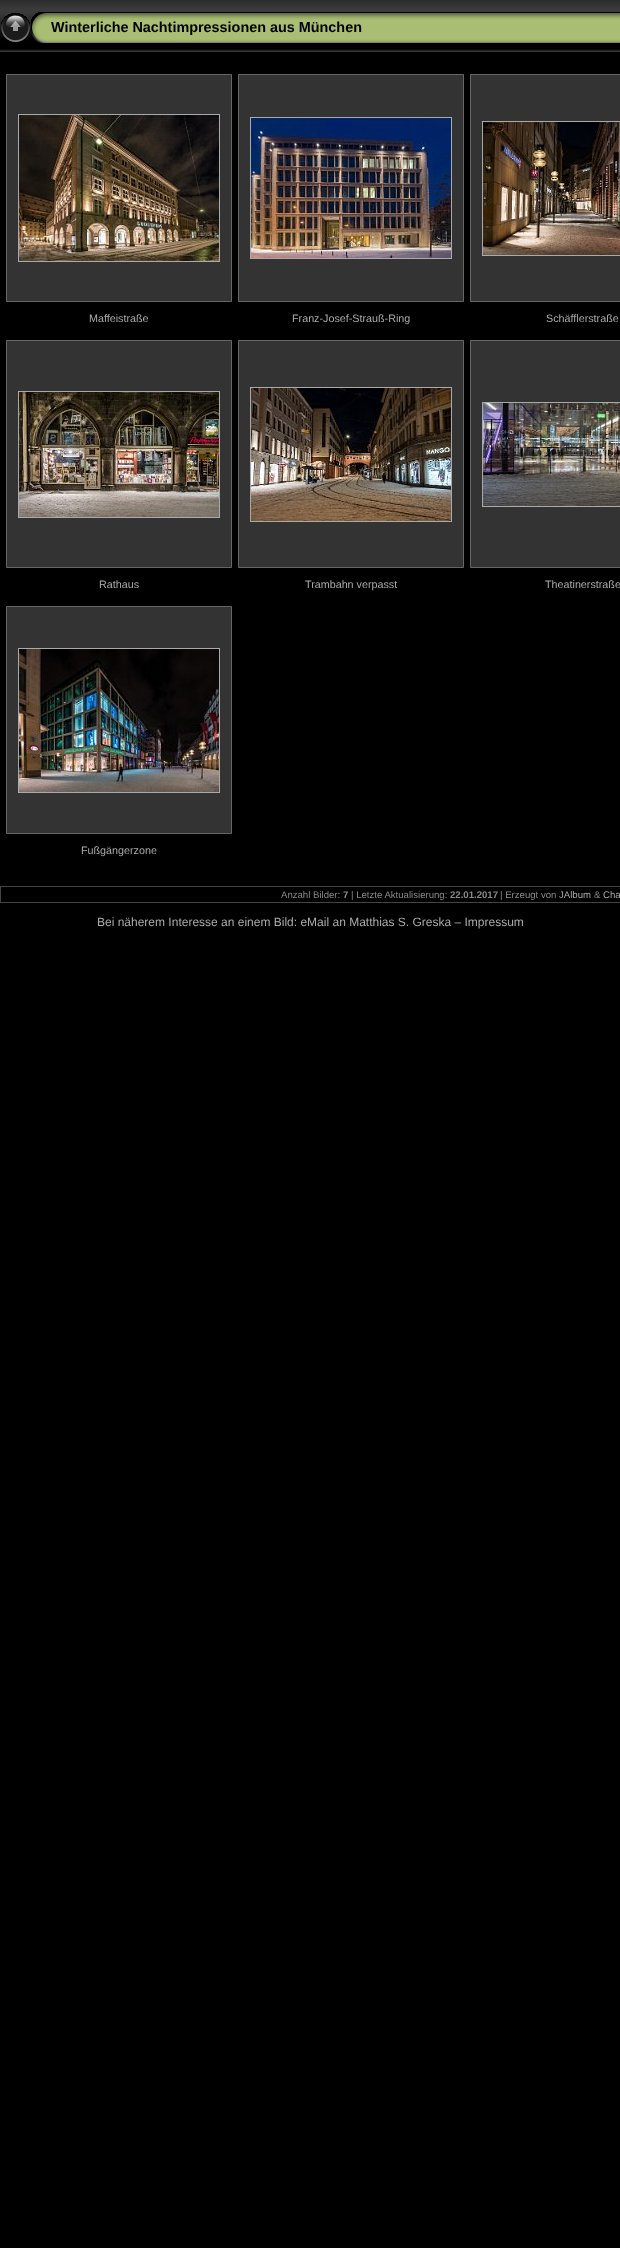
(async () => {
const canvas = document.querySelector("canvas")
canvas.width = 620
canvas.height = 2248
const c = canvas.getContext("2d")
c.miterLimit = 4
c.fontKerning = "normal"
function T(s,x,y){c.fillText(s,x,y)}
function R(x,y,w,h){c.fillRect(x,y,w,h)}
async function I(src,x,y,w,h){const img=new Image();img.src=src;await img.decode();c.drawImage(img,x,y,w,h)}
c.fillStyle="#000"
R(0,0,620,2248)
await I("1.png",0,0,620,52)
await I("2.png",1,13,29,29)
await I("3.png",31,12,20,31)
await I("4.png",51,12,569,31)
c.font="bold 14.4px Liberation Sans"
T("Winterliche Nachtimpressionen aus München",51,32)
c.fillStyle="#333"
c.beginPath()
c.rect(6.5,74.5,225,227)
c.fill()
c.strokeStyle="#666"
c.stroke()
c.strokeStyle="#aaa"
c.strokeRect(18.5,114.5,201,147)
await I("5.png",19,115,200,146)
c.font="10.75px Liberation Sans"
c.fillStyle="#aaa"
T("Maffeistraße",89,322)
c.fillStyle="#333"
c.beginPath()
c.rect(238.5,74.5,225,227)
c.fill()
c.strokeStyle="#666"
c.stroke()
c.strokeStyle="#aaa"
c.strokeRect(250.5,117.5,201,141)
await I("6.png",251,118,200,140)
c.fillStyle="#aaa"
T("Franz-Josef-Strauß-Ring",292,322)
c.fillStyle="#333"
c.beginPath()
c.rect(470.5,74.5,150,227)
c.fill()
c.strokeStyle="#666"
c.stroke()
c.strokeStyle="#aaa"
c.strokeRect(482.5,121.5,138,134)
await I("7.png",483,122,137,133)
c.fillStyle="#aaa"
T("Schäfflerstraße",546,322)
c.fillStyle="#333"
c.beginPath()
c.rect(6.5,340.5,225,227)
c.fill()
c.strokeStyle="#666"
c.stroke()
c.strokeStyle="#aaa"
c.strokeRect(18.5,391.5,201,126)
await I("8.png",19,392,200,125)
c.fillStyle="#aaa"
T("Rathaus",99,588)
c.fillStyle="#333"
c.beginPath()
c.rect(238.5,340.5,225,227)
c.fill()
c.strokeStyle="#666"
c.stroke()
c.strokeStyle="#aaa"
c.strokeRect(250.5,387.5,201,134)
await I("9.png",251,388,200,133)
c.fillStyle="#aaa"
T("Trambahn verpasst",305,588)
c.fillStyle="#333"
c.beginPath()
c.rect(470.5,340.5,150,227)
c.fill()
c.strokeStyle="#666"
c.stroke()
c.strokeStyle="#aaa"
c.strokeRect(482.5,402.5,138,104)
await I("10.png",483,403,137,103)
c.fillStyle="#aaa"
T("Theatinerstraße",545,588)
c.fillStyle="#333"
c.beginPath()
c.rect(6.5,606.5,225,227)
c.fill()
c.strokeStyle="#666"
c.stroke()
c.strokeStyle="#aaa"
c.strokeRect(18.5,648.5,201,144)
await I("11.png",19,649,200,143)
c.fillStyle="#aaa"
T("Fußgängerzone",81,854)
c.fillStyle="#444"
R(0,886,620,1)
R(0,902,620,1)
R(0,886,1,17)
c.font="9.6px Liberation Sans"
c.fillStyle="#888"
T("Anzahl Bilder:",281,898)
c.font="bold 9.6px Liberation Sans"
T("7",343,898)
c.font="9.6px Liberation Sans"
T("| Letzte Aktualisierung:",351,898)
c.font="bold 9.6px Liberation Sans"
T("22.01.2017",450,898)
c.font="9.6px Liberation Sans"
T("| Erzeugt von",500,898)
c.fillStyle="#aaa"
T("JAlbum",559,898)
c.fillStyle="#888"
T("&",594,898)
c.fillStyle="#aaa"
T("Cha",603,898)
c.font="12px Liberation Sans"
T("Bei näherem Interesse an einem Bild: eMail an Matthias S. Greska – Impressum",97,926)
})()
